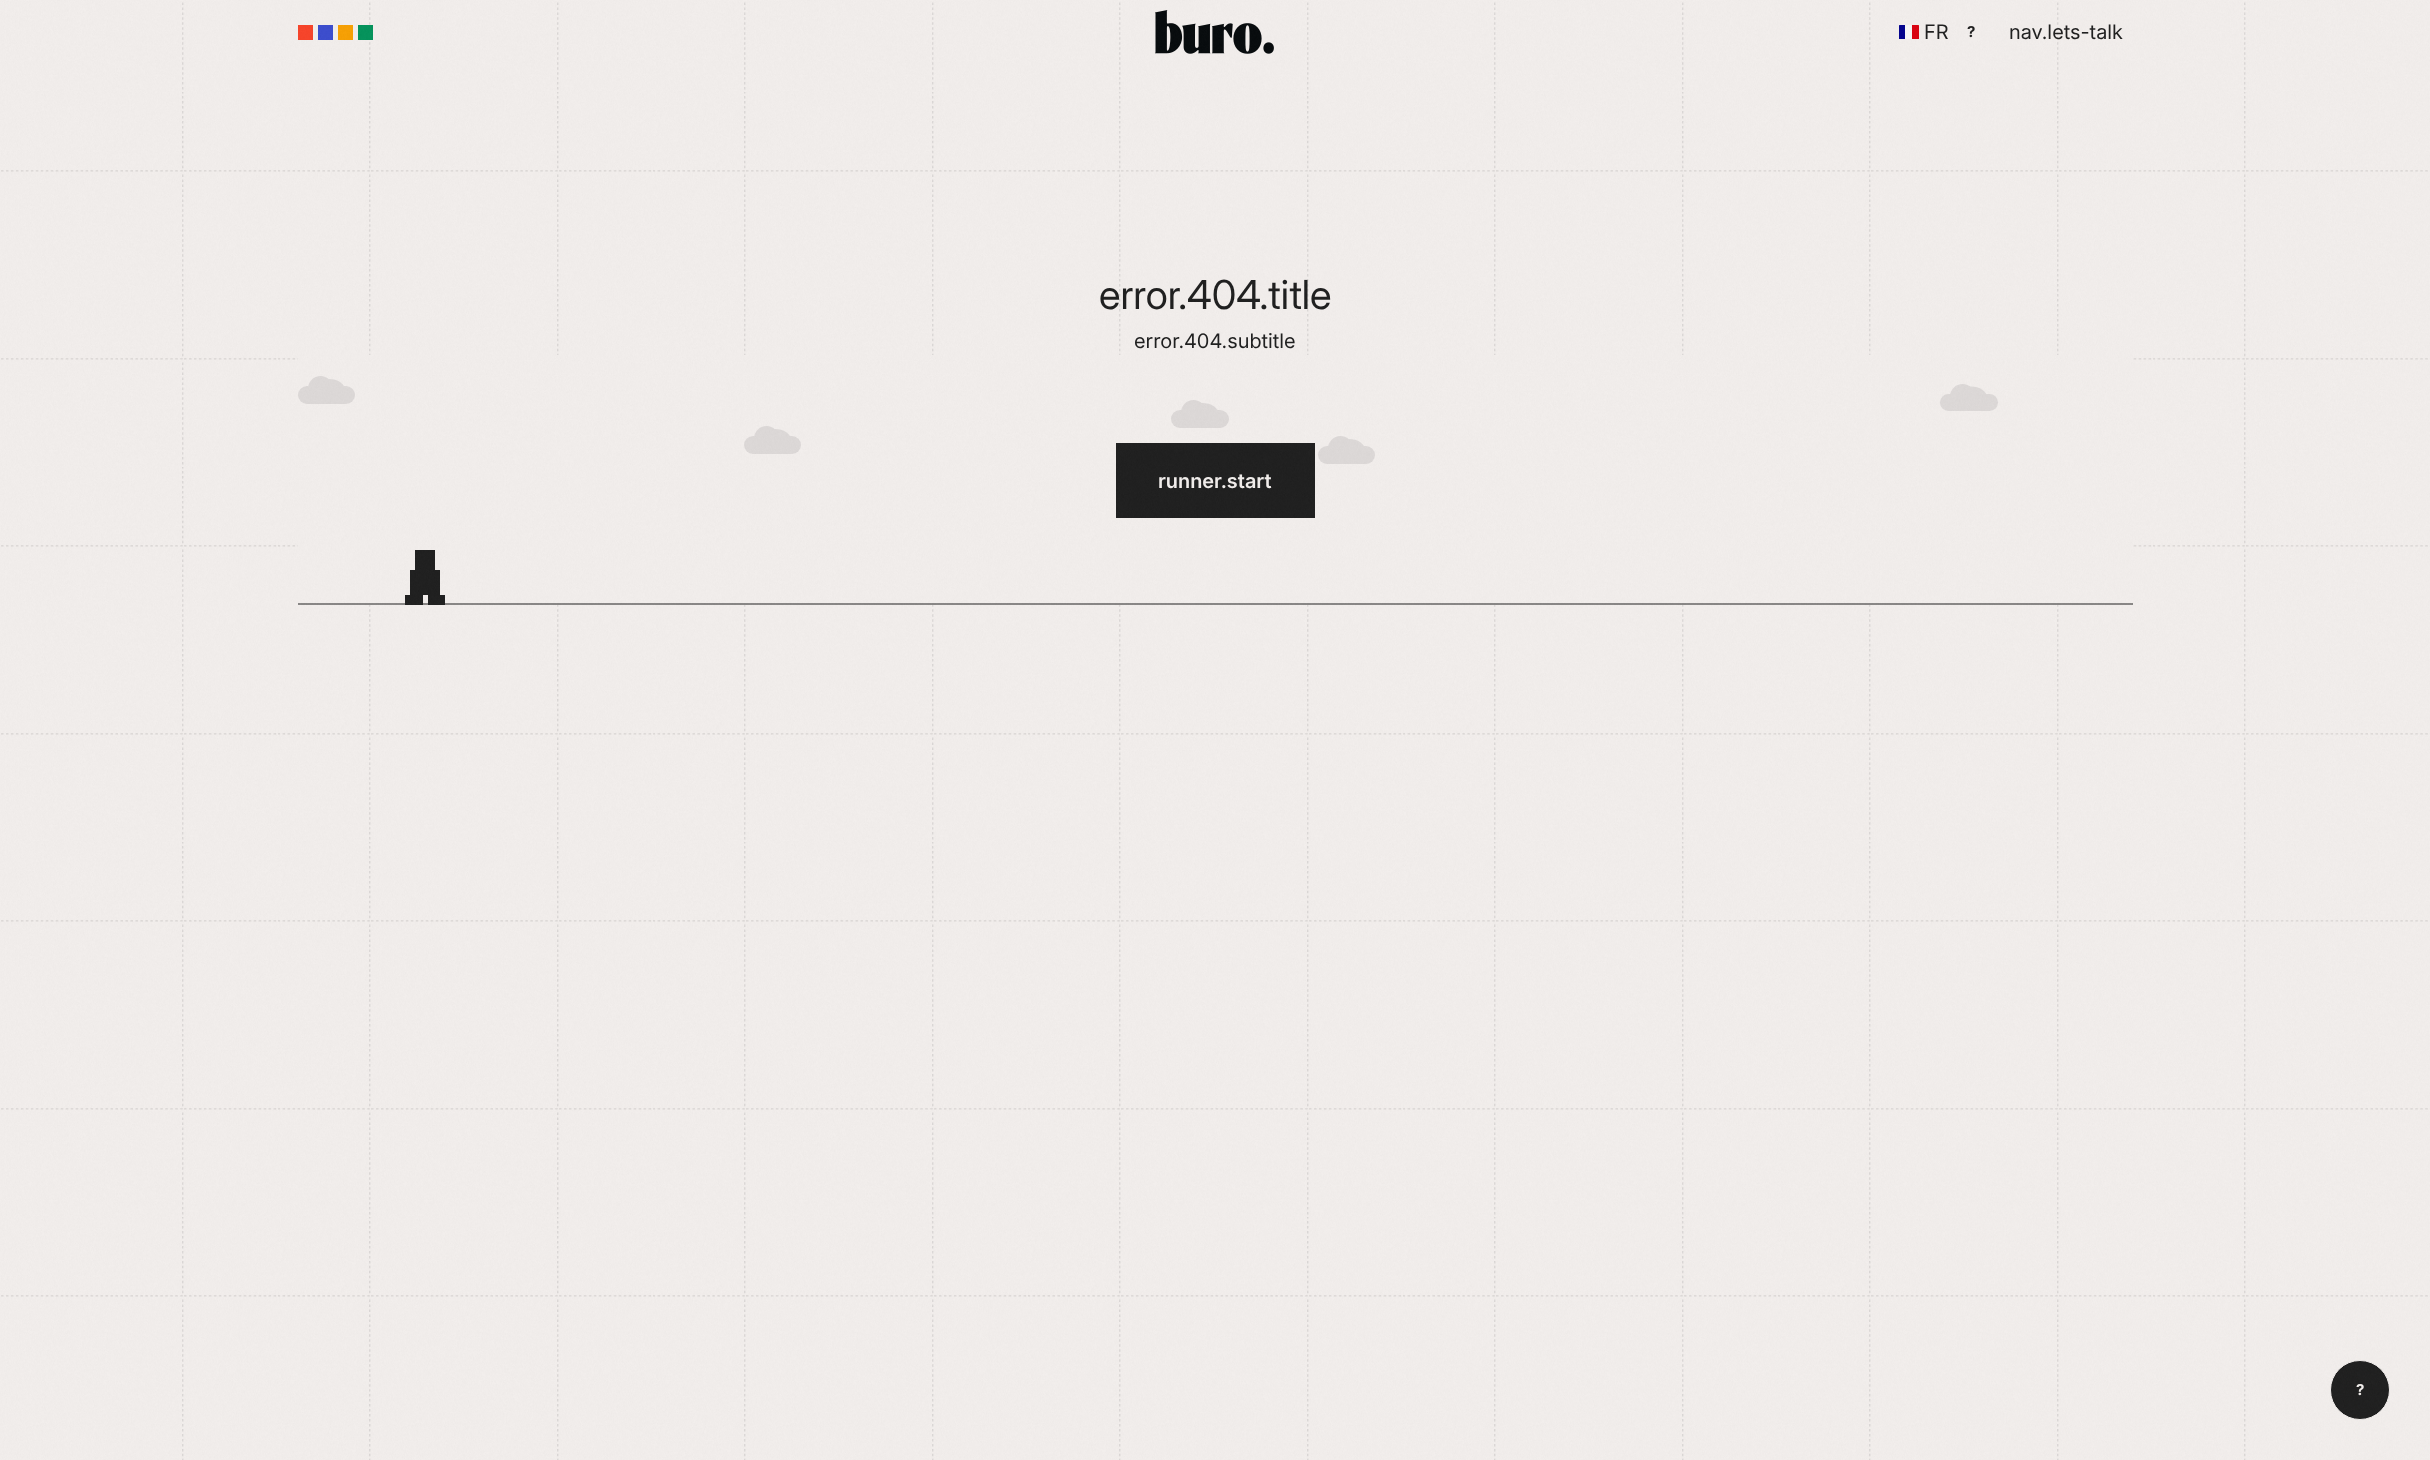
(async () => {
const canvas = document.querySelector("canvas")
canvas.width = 2430
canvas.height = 1460
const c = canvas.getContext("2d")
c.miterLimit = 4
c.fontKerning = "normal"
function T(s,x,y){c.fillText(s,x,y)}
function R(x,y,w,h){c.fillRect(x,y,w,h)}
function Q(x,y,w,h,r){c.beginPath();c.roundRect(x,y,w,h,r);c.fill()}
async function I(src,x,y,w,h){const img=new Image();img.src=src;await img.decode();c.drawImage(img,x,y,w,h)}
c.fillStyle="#faf6f4"
R(0,0,2430,1460)
await I("1.png",1,2,2427,1458)
c.fillStyle="#ff4429"
R(298,25,15,15)
c.fillStyle="#3c4ed4"
R(318,25,15,15)
c.fillStyle="#ffa400"
R(338,25,15,15)
c.fillStyle="#02975d"
R(358,25,15,15)
await I("3.png",1155,10,119,44)
c.fillStyle="#000091"
c.beginPath()
c.roundRect(1899,25,6,14,[.5,0,0,0])
c.fill()
c.fillStyle="#fff"
R(1905,25,7,14)
c.fillStyle="#e1000f"
c.beginPath()
c.roundRect(1912,25,7,14,[0,.5,0,0])
c.fill()
c.font="20px 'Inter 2'"
c.fillStyle="#1e1e1e"
T("FR",1924,39)
c.font="bold 15px Inter"
T("?",1967,37)
c.font="20px 'Inter 2'"
T("nav.lets-talk",2009,39)
c.font="40px Inter"
T("error.404.title",1099,309)
c.font="20px 'Inter 2'"
T("error.404.subtitle",1134,348)
c.fillStyle="#faf6f4"
R(298,355,1834,247)
c.fillStyle="#e4e0df"
Q(298,386,57,18,9)
c.beginPath()
c.arc(320.5,388.5,12.5,0,7)
c.fill()
c.beginPath()
c.ellipse(329,390,16,11,0,0,7)
c.fill()
Q(1171,410,58,18,9)
c.beginPath()
c.arc(1193.5,412.5,12.5,0,7)
c.fill()
c.beginPath()
c.ellipse(1202.5,414,16,11,0,0,7)
c.fill()
Q(1940,394,58,17,8.5)
c.beginPath()
c.arc(1962.5,396.5,12.5,0,7)
c.fill()
c.beginPath()
c.ellipse(1971,397.5,16,11,0,0,7)
c.fill()
Q(744,436,57,18,9)
c.beginPath()
c.arc(766.5,438.5,12.5,0,7)
c.fill()
c.beginPath()
c.ellipse(775,440,16,11,0,0,7)
c.fill()
Q(1318,446,57,18,9)
c.beginPath()
c.arc(1340.5,448.5,12.5,0,7)
c.fill()
c.beginPath()
c.ellipse(1349,450,16,11,0,0,7)
c.fill()
c.fillStyle="#1e1e1e"
R(415,550,20,20)
R(410,570,30,25)
c.fillStyle="#8c8a89"
R(298,603,1835,2)
c.fillStyle="#1e1e1e"
R(405,595,18,10)
R(428,595,17,10)
R(1116,443,199,75)
c.font="600 20px Inter"
c.fillStyle="#faf6f4"
T("runner.start",1158,488)
c.fillStyle="#1e1e1e"
c.beginPath()
c.arc(2360,1390,29.5,0,7)
c.fill()
c.strokeStyle="#faf6f4"
c.stroke()
c.font="bold 15px Inter"
c.fillStyle="#faf6f4"
T("?",2356,1395)
await I("2.png",0,0,2430,1460)
})()
